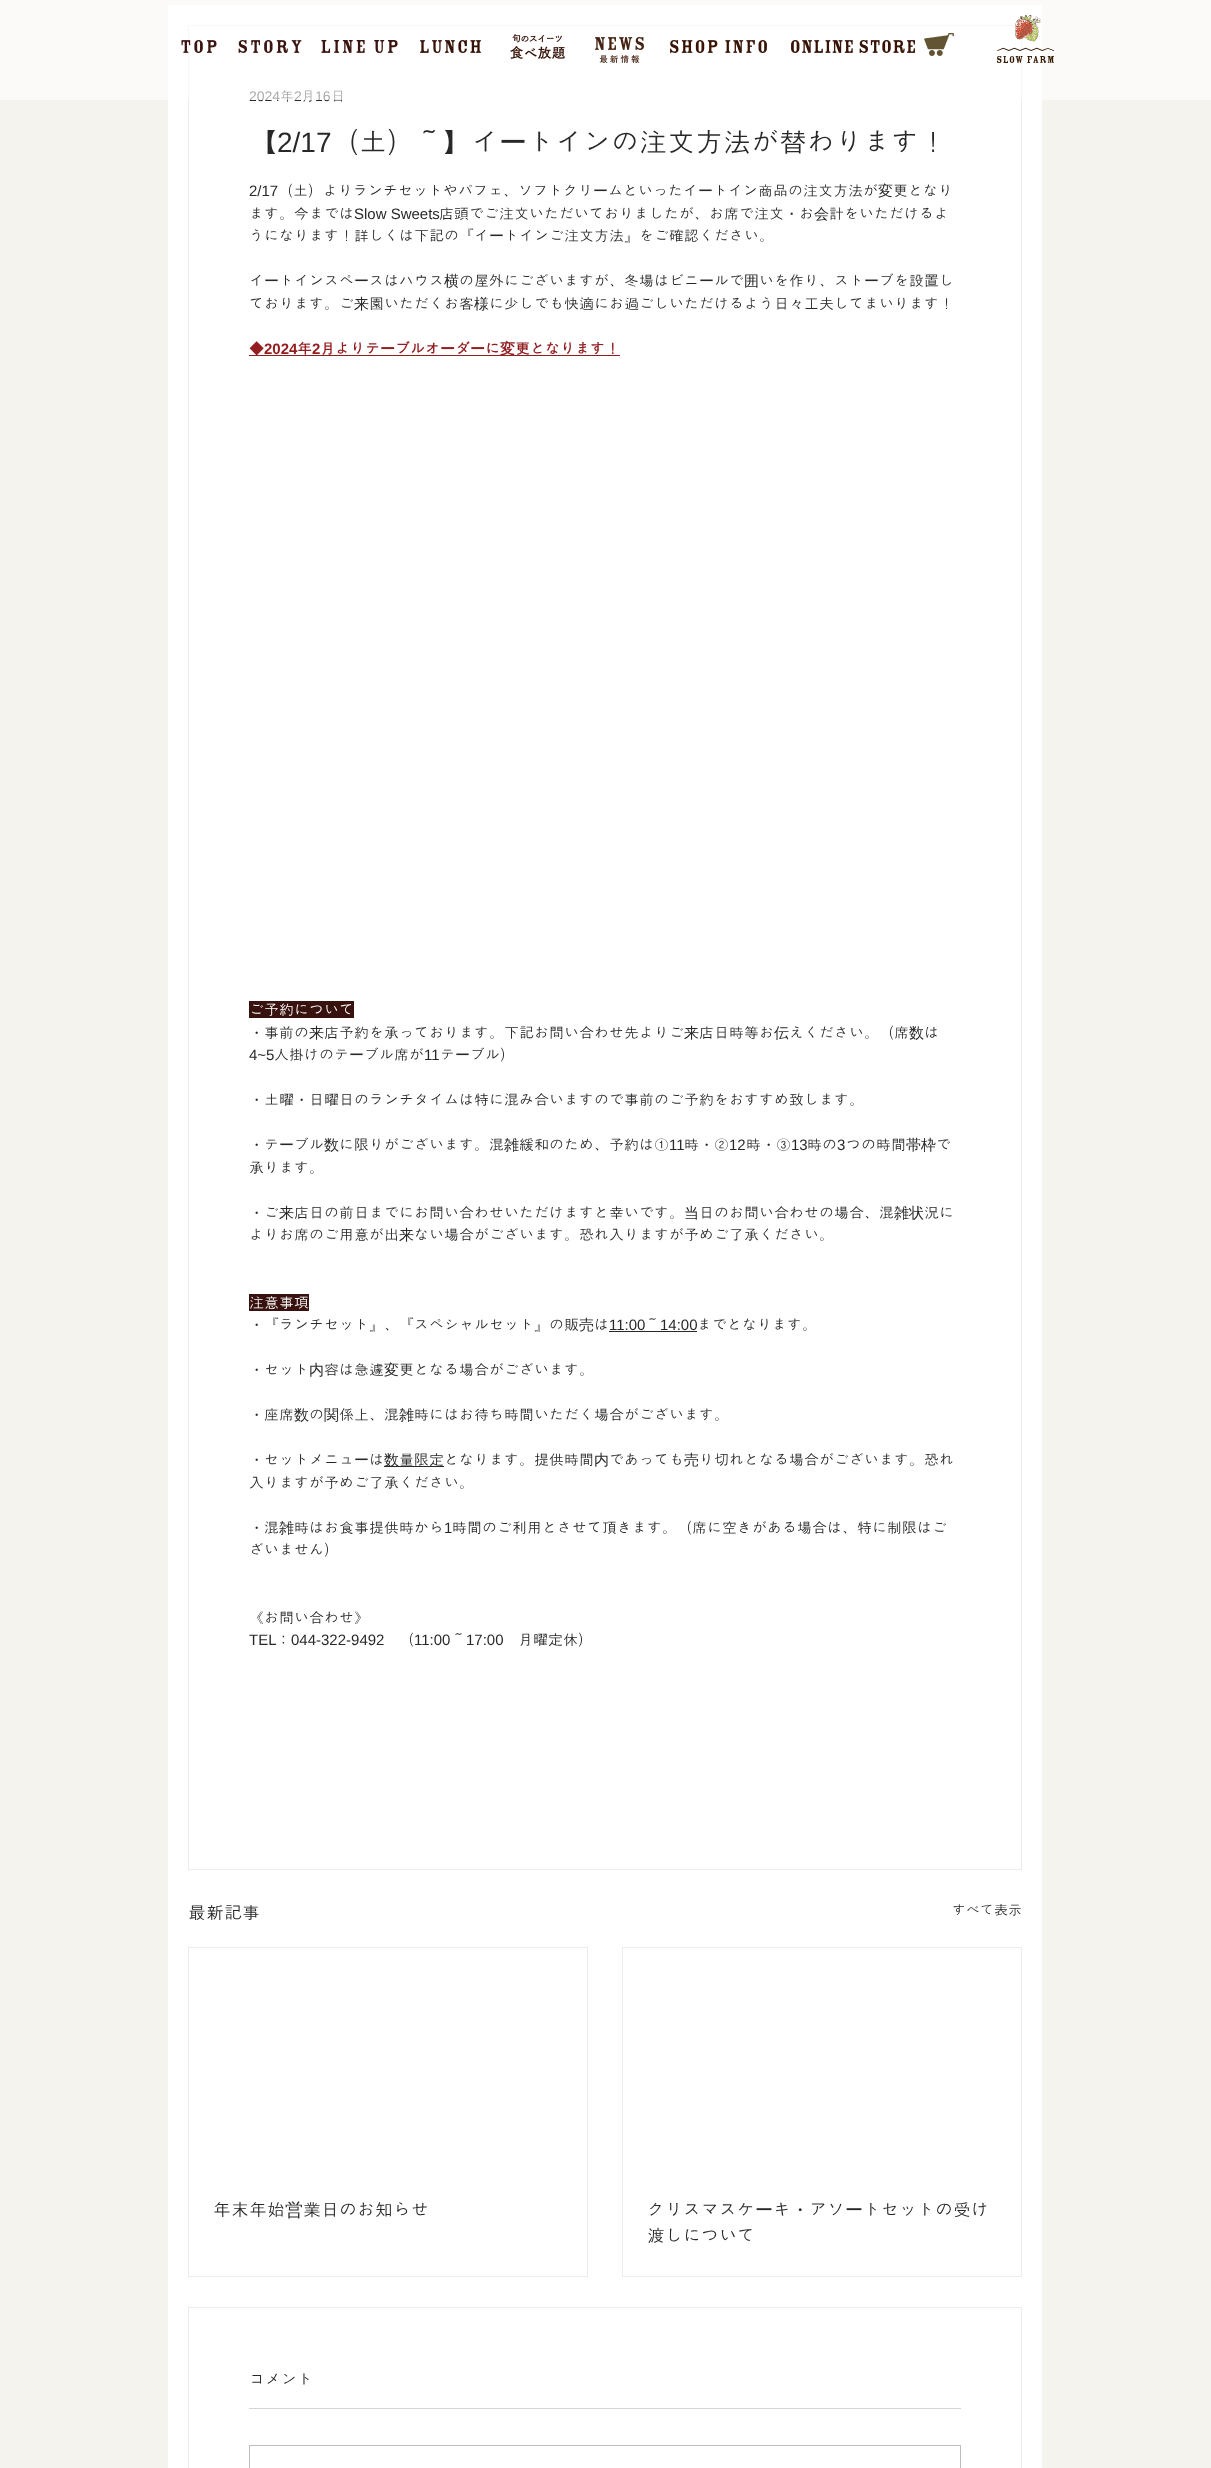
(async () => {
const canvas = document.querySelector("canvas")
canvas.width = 1211
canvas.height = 2468
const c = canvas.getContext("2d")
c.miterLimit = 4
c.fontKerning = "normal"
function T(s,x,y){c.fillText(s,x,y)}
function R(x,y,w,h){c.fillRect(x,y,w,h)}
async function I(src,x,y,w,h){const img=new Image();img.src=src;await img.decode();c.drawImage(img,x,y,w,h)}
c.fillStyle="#f4f3ed"
R(0,0,1211,2468)
c.fillStyle="#fff"
R(168,5,874,2463)
c.strokeStyle="#ececec"
c.strokeRect(188.5,25.5,833,1844)
c.font="14px Liberation Sans"
c.fillStyle="#282828"
T("2024",249,101)
c.font="14px Dotum"
T("年",280,101)
c.font="14px Liberation Sans"
T("2",294,101)
c.font="14px Dotum"
T("月",301,101)
c.font="14px Liberation Sans"
T("16",315,101)
c.font="14px Dotum"
T("日",331,101)
c.fillStyle="#ffffff99"
R(0,0,1211,100)
await I("1.png",181,40,36,13)
await I("2.png",238,40,64,13)
await I("3.png",321,40,77,13)
await I("4.png",420,40,61,13)
await I("5.png",510,34,55,25)
await I("6.png",595,37,49,13)
await I("7.png",670,40,97,13)
await I("8.png",791,40,124,13)
await I("9.png",924,33,30,23)
await I("10.png",997,15,57,48)
await I("11.png",599,55,41,8)
c.font="28px Dotum"
c.fillStyle="#282828"
T("【",249,152)
c.font="28px Liberation Sans"
T("2/17",277,152)
c.font="28px Dotum"
T("（土）～】イ",331,152)
c.font="500 28px WenQuanYi Zen Hei"
T("ー",499,152)
c.font="28px Dotum"
T("トインの注文方法が替わります！",527,152)
c.font="15px Liberation Sans"
T("2/17",249,196)
c.font="15px Dotum"
T("（土）よりランチセットやパフェ、ソフトクリ",278,196)
c.font="500 15px WenQuanYi Zen Hei"
T("ー",593,196)
c.font="15px Dotum"
T("ムといったイ",608,196)
c.font="500 15px WenQuanYi Zen Hei"
T("ー",698,196)
c.font="15px Dotum"
T("トイン商品の注文方法が",713,196)
c.font="500 15px WenQuanYi Zen Hei"
T("変",878,196)
c.font="15px Dotum"
T("更となり",893,196)
T("ます。今までは",249,219)
c.font="15px Liberation Sans"
T("Slow Sweets",354,219)
c.font="15px Dotum"
T("店頭でご注文いただいておりましたが、お席で注文",439,219)
c.font="500 15px WenQuanYi Zen Hei"
T("・",784,219)
c.font="15px Dotum"
T("お",799,219)
c.font="500 15px WenQuanYi Zen Hei"
T("会",814,219)
c.font="15px Dotum"
T("計をいただけるよ",829,219)
T("うになります！詳しくは下記の『イ",249,241)
c.font="500 15px WenQuanYi Zen Hei"
T("ー",489,241)
c.font="15px Dotum"
T("トインご注文方法』をご確認ください。",504,241)
T("イ",249,286)
c.font="500 15px WenQuanYi Zen Hei"
T("ー",264,286)
c.font="15px Dotum"
T("トインスペ",279,286)
c.font="500 15px WenQuanYi Zen Hei"
T("ー",354,286)
c.font="15px Dotum"
T("スはハウス",369,286)
c.font="500 15px WenQuanYi Zen Hei"
T("横",444,286)
c.font="15px Dotum"
T("の屋外にございますが、冬場はビニ",459,286)
c.font="500 15px WenQuanYi Zen Hei"
T("ー",699,286)
c.font="15px Dotum"
T("ルで",714,286)
c.font="500 15px WenQuanYi Zen Hei"
T("囲",744,286)
c.font="15px Dotum"
T("いを作り、スト",759,286)
c.font="500 15px WenQuanYi Zen Hei"
T("ー",864,286)
c.font="15px Dotum"
T("ブを設置し",879,286)
T("ております。ご",249,309)
c.font="500 15px WenQuanYi Zen Hei"
T("来",354,309)
c.font="15px Dotum"
T("園いただくお客",369,309)
c.font="500 15px WenQuanYi Zen Hei"
T("様",474,309)
c.font="15px Dotum"
T("に少しでも快適にお過ごしいただけるよう日",489,309)
c.font="500 15px WenQuanYi Zen Hei"
T("々",789,309)
c.font="15px Dotum"
T("工夫してまいります！",804,309)
c.fillStyle="#921e22"
R(249,355,371,1)
c.font="bold 15px Dotum"
T("◆",249,354)
c.font="bold 15px Liberation Sans"
T("2024",264,354)
c.font="bold 15px Dotum"
T("年",297,354)
c.font="bold 15px Liberation Sans"
T("2",312,354)
c.font="bold 15px Dotum"
T("月よりテ",320,354)
c.font="bold 15px WenQuanYi Zen Hei"
T("ー",380,354)
c.font="bold 15px Dotum"
T("ブルオ",395,354)
c.font="bold 15px WenQuanYi Zen Hei"
T("ー",440,354)
c.font="bold 15px Dotum"
T("ダ",455,354)
c.font="bold 15px WenQuanYi Zen Hei"
T("ー",470,354)
c.font="bold 15px Dotum"
T("に",485,354)
c.font="bold 15px WenQuanYi Zen Hei"
T("変",500,354)
c.font="bold 15px Dotum"
T("更となります！",515,354)
c.fillStyle="#38120e"
R(249,1001,105,17)
c.font="15px Dotum"
c.fillStyle="#fff"
T("ご予約について",249,1015)
c.font="500 15px WenQuanYi Zen Hei"
c.fillStyle="#282828"
T("・",249,1038)
c.font="15px Dotum"
T("事前の",264,1038)
c.font="500 15px WenQuanYi Zen Hei"
T("来",309,1038)
c.font="15px Dotum"
T("店予約を承っております。下記お問い合わせ先よりご",324,1038)
c.font="500 15px WenQuanYi Zen Hei"
T("来",684,1038)
c.font="15px Dotum"
T("店日時等お",699,1038)
c.font="500 15px WenQuanYi Zen Hei"
T("伝",774,1038)
c.font="15px Dotum"
T("えください。（席",789,1038)
c.font="500 15px WenQuanYi Zen Hei"
T("数",909,1038)
c.font="15px Dotum"
T("は",924,1038)
c.font="15px Liberation Sans"
T("4~5",249,1060)
c.font="15px Dotum"
T("人掛けのテ",274,1060)
c.font="500 15px WenQuanYi Zen Hei"
T("ー",349,1060)
c.font="15px Dotum"
T("ブル席が",364,1060)
c.font="15px Liberation Sans"
T("11",424,1060)
c.font="15px Dotum"
T("テ",440,1060)
c.font="500 15px WenQuanYi Zen Hei"
T("ー",455,1060)
c.font="15px Dotum"
T("ブル）",470,1060)
c.font="500 15px WenQuanYi Zen Hei"
T("・",249,1105)
c.font="15px Dotum"
T("土曜",264,1105)
c.font="500 15px WenQuanYi Zen Hei"
T("・",294,1105)
c.font="15px Dotum"
T("日曜日のランチタイムは特に混み合いますので事前のご予約をおすすめ致します。",309,1105)
c.font="500 15px WenQuanYi Zen Hei"
T("・",249,1150)
c.font="15px Dotum"
T("テ",264,1150)
c.font="500 15px WenQuanYi Zen Hei"
T("ー",279,1150)
c.font="15px Dotum"
T("ブル",294,1150)
c.font="500 15px WenQuanYi Zen Hei"
T("数",324,1150)
c.font="15px Dotum"
T("に限りがございます。混",339,1150)
c.font="500 15px WenQuanYi Zen Hei"
T("雑",504,1150)
c.font="15px Dotum"
T("緩和のため、予約は①",519,1150)
c.font="15px Liberation Sans"
T("11",669,1150)
c.font="15px Dotum"
T("時",684,1150)
c.font="500 15px WenQuanYi Zen Hei"
T("・",699,1150)
c.font="15px Dotum"
T("②",714,1150)
c.font="15px Liberation Sans"
T("12",729,1150)
c.font="15px Dotum"
T("時",746,1150)
c.font="500 15px WenQuanYi Zen Hei"
T("・",761,1150)
c.font="15px Dotum"
T("③",776,1150)
c.font="15px Liberation Sans"
T("13",791,1150)
c.font="15px Dotum"
T("時の",807,1150)
c.font="15px Liberation Sans"
T("3",837,1150)
c.font="15px Dotum"
T("つの時間",846,1150)
c.font="500 15px WenQuanYi Zen Hei"
T("帯枠",906,1150)
c.font="15px Dotum"
T("で",936,1150)
T("承ります。",249,1173)
c.font="500 15px WenQuanYi Zen Hei"
T("・",249,1218)
c.font="15px Dotum"
T("ご",264,1218)
c.font="500 15px WenQuanYi Zen Hei"
T("来",279,1218)
c.font="15px Dotum"
T("店日の前日までにお問い合わせいただけますと幸いです。",294,1218)
c.font="500 15px WenQuanYi Zen Hei"
T("当",684,1218)
c.font="15px Dotum"
T("日のお問い合わせの場合、混",699,1218)
c.font="500 15px WenQuanYi Zen Hei"
T("雑状",894,1218)
c.font="15px Dotum"
T("況に",924,1218)
T("よりお席のご用意が出",249,1240)
c.font="500 15px WenQuanYi Zen Hei"
T("来",399,1240)
c.font="15px Dotum"
T("ない場合がございます。恐れ入りますが予めご了承ください。",414,1240)
c.fillStyle="#38120e"
R(249,1294,60,17)
c.fillStyle="#fff"
T("注意事項",249,1308)
c.font="500 15px WenQuanYi Zen Hei"
c.fillStyle="#282828"
T("・",249,1330)
c.font="15px Dotum"
T("『ランチセット』、『スペシャルセット』の販",264,1330)
c.font="500 15px WenQuanYi Zen Hei"
T("売",579,1330)
c.font="15px Dotum"
T("は",594,1330)
c.font="15px Liberation Sans"
T("11:00",609,1330)
R(609,1331,88,1)
c.font="15px Dotum"
T("～",645,1330)
c.font="15px Liberation Sans"
T("14:00",660,1330)
c.font="15px Dotum"
T("までとなります。",697,1330)
c.font="500 15px WenQuanYi Zen Hei"
T("・",249,1375)
c.font="15px Dotum"
T("セット",264,1375)
c.font="500 15px WenQuanYi Zen Hei"
T("内",309,1375)
c.font="15px Dotum"
T("容は急遽",324,1375)
c.font="500 15px WenQuanYi Zen Hei"
T("変",384,1375)
c.font="15px Dotum"
T("更となる場合がございます。",399,1375)
c.font="500 15px WenQuanYi Zen Hei"
T("・",249,1420)
c.font="15px Dotum"
T("座席",264,1420)
c.font="500 15px WenQuanYi Zen Hei"
T("数",294,1420)
c.font="15px Dotum"
T("の",309,1420)
c.font="500 15px WenQuanYi Zen Hei"
T("関",324,1420)
c.font="15px Dotum"
T("係上、混",339,1420)
c.font="500 15px WenQuanYi Zen Hei"
T("雑",399,1420)
c.font="15px Dotum"
T("時にはお待ち時間いただく場合がございます。",414,1420)
c.font="500 15px WenQuanYi Zen Hei"
T("・",249,1465)
c.font="15px Dotum"
T("セットメニュ",264,1465)
c.font="500 15px WenQuanYi Zen Hei"
T("ー",354,1465)
c.font="15px Dotum"
T("は",369,1465)
R(384,1466,60,1)
c.font="500 15px WenQuanYi Zen Hei"
T("数",384,1465)
c.font="15px Dotum"
T("量限定となります。提供時間",399,1465)
c.font="500 15px WenQuanYi Zen Hei"
T("内",594,1465)
c.font="15px Dotum"
T("であっても",609,1465)
c.font="500 15px WenQuanYi Zen Hei"
T("売",684,1465)
c.font="15px Dotum"
T("り切れとなる場合がございます。恐れ",699,1465)
T("入りますが予めご了承ください。",249,1488)
c.font="500 15px WenQuanYi Zen Hei"
T("・",249,1533)
c.font="15px Dotum"
T("混",264,1533)
c.font="500 15px WenQuanYi Zen Hei"
T("雑",279,1533)
c.font="15px Dotum"
T("時はお食事提供時から",294,1533)
c.font="15px Liberation Sans"
T("1",444,1533)
c.font="15px Dotum"
T("時間のご利用とさせて頂きます。（席に空きがある場合は、特に制限はご",452,1533)
T("ざいません）",249,1555)
T("《お問い合わせ》",249,1623)
c.font="15px Liberation Sans"
T("TEL",249,1645)
c.font="15px Dotum"
T("：",276,1645)
c.font="15px Liberation Sans"
T("044-322-9492",291,1645)
c.font="15px Dotum"
T("（",399,1645)
c.font="15px Liberation Sans"
T("11:00",414,1645)
c.font="15px Dotum"
T("～",451,1645)
c.font="15px Liberation Sans"
T("17:00",466,1645)
c.font="15px Dotum"
T("月曜定休）",518,1645)
c.font="18px Dotum"
T("最新記事",188,1919)
c.font="14px Dotum"
T("すべて表示",952,1915)
c.strokeRect(188.5,1947.5,399,329)
c.font="18px Dotum"
T("年末年始",213,2216)
c.font="500 18px WenQuanYi Zen Hei"
T("営",285,2216)
c.font="18px Dotum"
T("業日のお知らせ",303,2216)
c.strokeRect(622.5,1947.5,399,329)
T("クリスマスケ",647,2216)
c.font="500 18px WenQuanYi Zen Hei"
T("ー",755,2216)
c.font="18px Dotum"
T("キ",773,2216)
c.font="500 18px WenQuanYi Zen Hei"
T("・",791,2216)
c.font="18px Dotum"
T("アソ",809,2216)
c.font="500 18px WenQuanYi Zen Hei"
T("ー",845,2216)
c.font="18px Dotum"
T("トセットの受け",863,2216)
T("渡しについて",647,2242)
c.strokeRect(188.5,2307.5,833,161)
c.font="16px Dotum"
T("コメント",249,2385)
c.fillStyle="#d4d4d4"
R(249,2408,712,1)
c.strokeStyle="#bfbfbf"
c.strokeRect(249.5,2445.5,711,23)
})()
